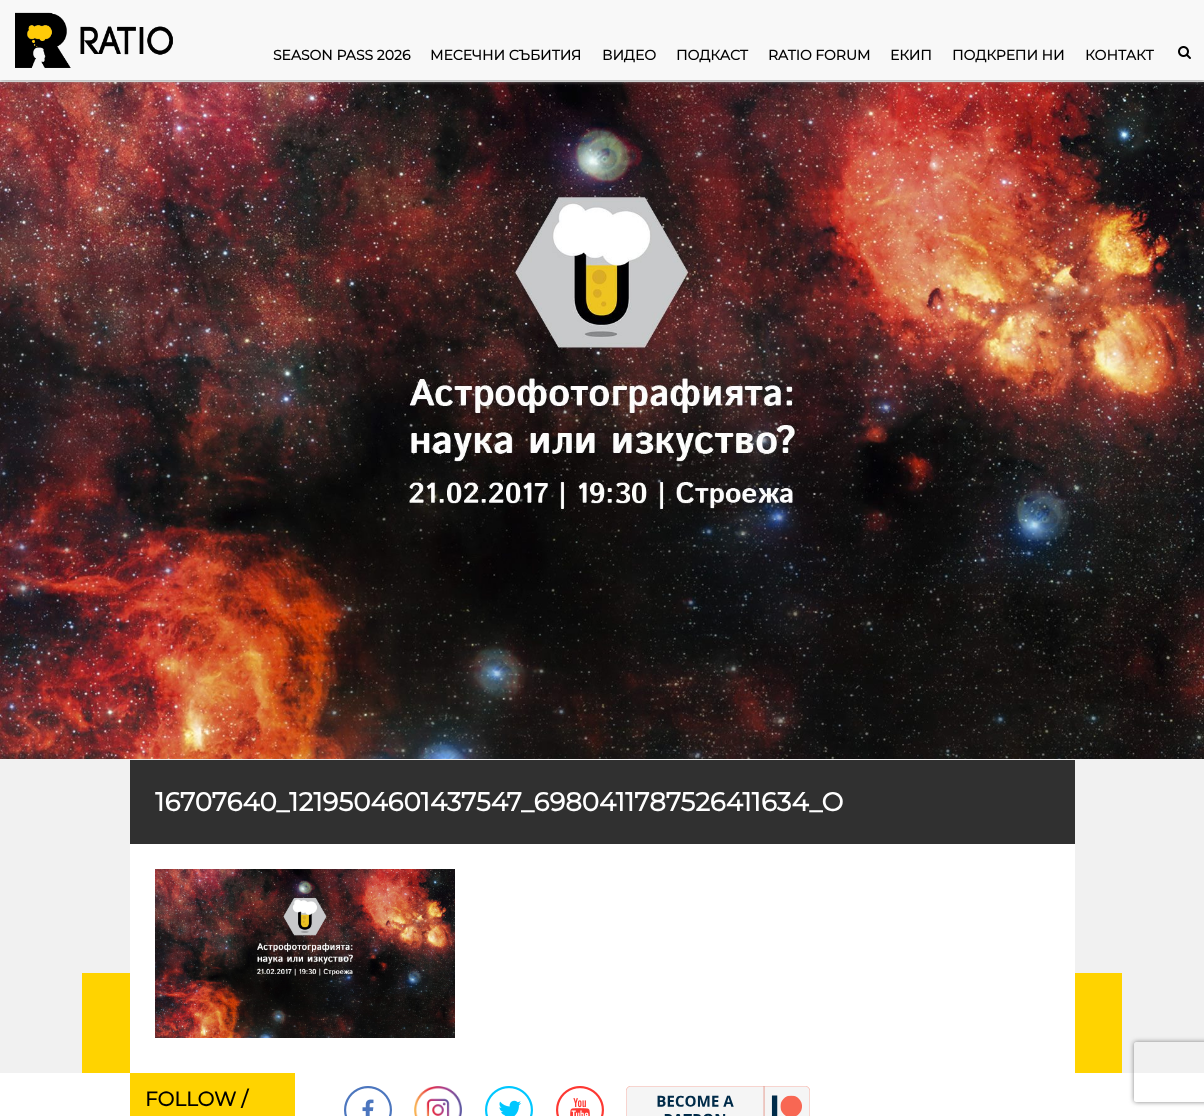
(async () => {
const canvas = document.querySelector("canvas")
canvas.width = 1204
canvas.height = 1116
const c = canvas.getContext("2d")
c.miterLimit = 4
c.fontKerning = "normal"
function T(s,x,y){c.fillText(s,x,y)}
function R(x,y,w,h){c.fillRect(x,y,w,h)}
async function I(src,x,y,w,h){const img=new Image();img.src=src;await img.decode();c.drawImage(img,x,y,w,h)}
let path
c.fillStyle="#f1f1f1"
R(0,0,1204,1116)
await I("3.png",0,82,1204,677)
c.fillStyle="#a7a7a7"
c.filter="blur(2px)"
c.beginPath()
c.rect(0,1,1204,80)
c.fill()
c.filter="none"
c.fillStyle="#f8f8f8"
R(0,0,1204,80)
await I("1.png",15,12,158,56)
c.font="bold 14px Montserrat"
c.fillStyle="#000"
T("SEASON PASS 2026",273,60)
T("МЕСЕЧНИ СЪБИТИЯ",430,60)
T("ВИДЕО",602,60)
T("ПОДКАСТ",676,60)
T("RATIO FORUM",768,60)
T("ЕКИП",890,60)
T("ПОДКРЕПИ НИ",952,60)
T("КОНТАКТ",1085,60)
await I("2.png",1178,46,13,13)
c.fillStyle="#303030"
R(130,760,945,84)
c.font="bold 26px Montserrat"
c.fillStyle="#fff"
T("16707640_1219504601437547_6980411787526411634_O",155,811)
c.fillStyle="#ffd300"
R(82,973,1040,100)
c.fillStyle="#fff"
R(130,844,945,229)
await I("4.png",155,869,300,169)
R(0,1073,1204,43)
c.save()
path = new Path2D("M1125 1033h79v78h-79zm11 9h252c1 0 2 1 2 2v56c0 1-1 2-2 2h-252c-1 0-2-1-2-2v-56c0-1 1-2 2-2z")
c.clip(path,"evenodd")
c.fillStyle="#808080"
c.filter="blur(2.5px)"
c.beginPath()
c.roundRect(1134,1042,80,60,2)
c.fill()
c.filter="none"
c.restore()
c.fillStyle="#ffd300"
R(130,1073,165,43)
c.font="bold 20px Montserrat"
c.fillStyle="#000"
T("FOLLOW /",145,1106)
await I("5.png",344,1086,48,30)
await I("6.png",414,1086,48,30)
await I("7.png",485,1086,48,30)
await I("8.png",556,1086,48,30)
await I("9.png",626,1086,184,30)
})()
